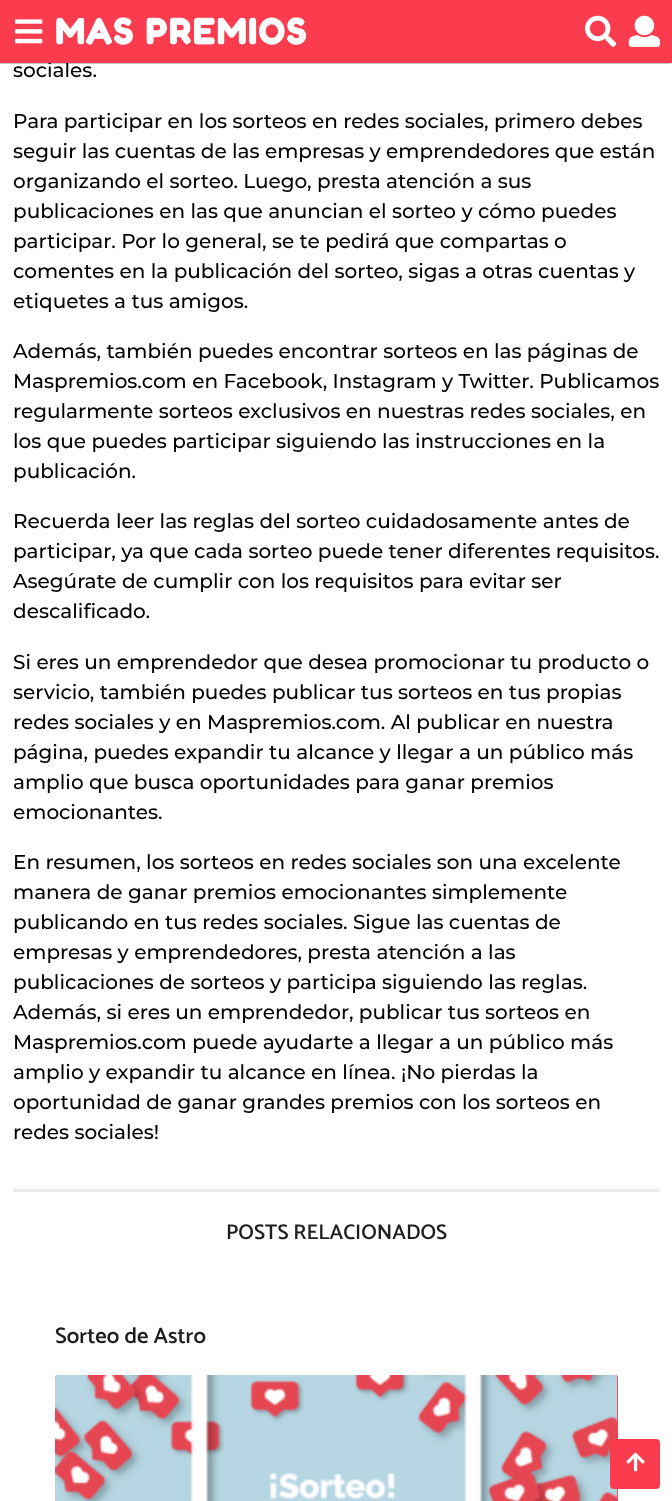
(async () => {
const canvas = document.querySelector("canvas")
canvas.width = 672
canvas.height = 1501
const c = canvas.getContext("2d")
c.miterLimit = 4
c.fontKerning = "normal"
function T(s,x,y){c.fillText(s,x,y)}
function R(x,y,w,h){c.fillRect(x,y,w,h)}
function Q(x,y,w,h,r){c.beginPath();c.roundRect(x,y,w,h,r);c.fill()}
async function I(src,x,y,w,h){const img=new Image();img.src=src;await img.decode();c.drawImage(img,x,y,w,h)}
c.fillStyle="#fff"
R(0,0,672,1501)
c.fillStyle="#2a2a2a45"
c.filter="blur(0.5px)"
c.beginPath()
c.rect(-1,1,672,63)
c.fill()
c.filter="none"
c.font="500 20px Montserrat"
c.fillStyle="#000"
T("sociales.",13,77)
c.fillStyle="#fb3c4f"
R(0,0,672,63)
await I("1.png",15,19,28,25)
await I("2.png",56,17,251,28)
await I("3.png",585,15,32,32)
await I("4.png",628,15,32,32)
c.fillStyle="#000"
T("Para participar en los sorteos en redes sociales, primero debes",13,128)
T("seguir las cuentas de las empresas y emprendedores que están",13,158)
T("organizando el sorteo. Luego, presta atención a sus",13,188)
T("publicaciones en las que anuncian el sorteo y cómo puedes",13,218)
T("participar. Por lo general, se te pedirá que compartas o",13,248)
T("comentes en la publicación del sorteo, sigas a otras cuentas y",13,278)
T("etiquetes a tus amigos.",13,308)
T("Además, también puedes encontrar sorteos en las páginas de",13,358)
T("Maspremios.com en Facebook, Instagram y Twitter. Publicamos",13,388)
T("regularmente sorteos exclusivos en nuestras redes sociales, en",13,418)
T("los que puedes participar siguiendo las instrucciones en la",13,448)
T("publicación.",13,478)
T("Recuerda leer las reglas del sorteo cuidadosamente antes de",13,528)
T("participar, ya que cada sorteo puede tener diferentes requisitos.",13,558)
T("Asegúrate de cumplir con los requisitos para evitar ser",13,588)
T("descalificado.",13,618)
T("Si eres un emprendedor que desea promocionar tu producto o",13,669)
T("servicio, también puedes publicar tus sorteos en tus propias",13,699)
T("redes sociales y en Maspremios.com. Al publicar en nuestra",13,729)
T("página, puedes expandir tu alcance y llegar a un público más",13,759)
T("amplio que busca oportunidades para ganar premios",13,789)
T("emocionantes.",13,819)
T("En resumen, los sorteos en redes sociales son una excelente",13,869)
T("manera de ganar premios emocionantes simplemente",13,899)
T("publicando en tus redes sociales. Sigue las cuentas de",13,929)
T("empresas y emprendedores, presta atención a las",13,959)
T("publicaciones de sorteos y participa siguiendo las reglas.",13,989)
T("Además, si eres un emprendedor, publicar tus sorteos en",13,1019)
T("Maspremios.com puede ayudarte a llegar a un público más",13,1049)
T("amplio y expandir tu alcance en línea. ¡No pierdas la",13,1079)
T("oportunidad de ganar grandes premios con los sorteos en",13,1109)
T("redes sociales!",13,1139)
c.fillStyle="#ececec"
R(13,1189,647,3)
c.font="600 21.25px Catamaran"
c.fillStyle="#1f1f1f"
T("POSTS RELACIONADOS",226,1239)
c.font="600 22.5px Catamaran"
T("Sorteo de Astro",55,1343)
c.fillStyle="#fb3c4f"
Q(55,1375,563,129,2.5)
await I("5.png",55,1375,563,126)
Q(610,1439,50,50,4)
await I("6.png",626,1452,19,20)
})()
